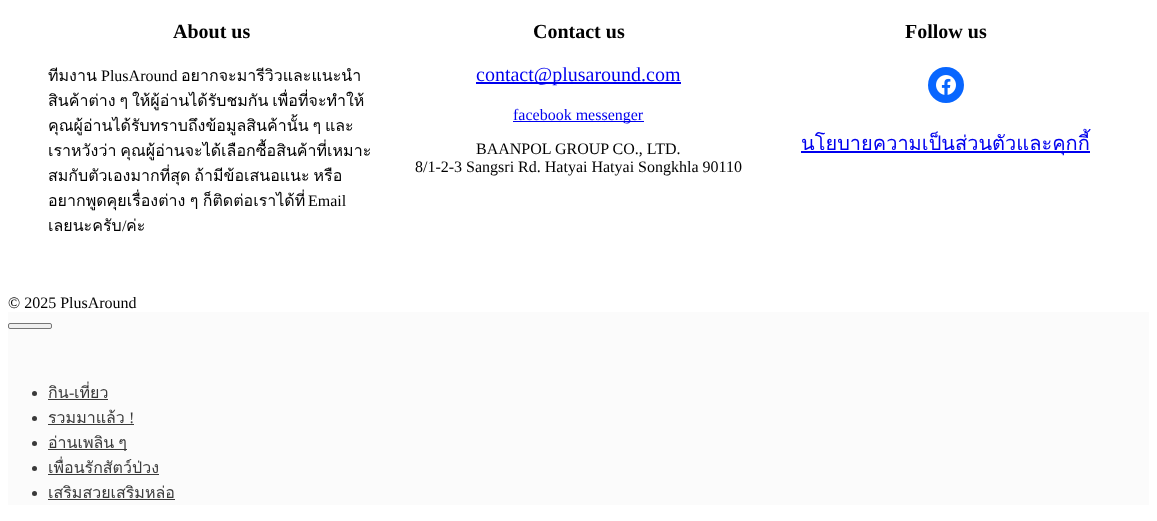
(async () => {
const canvas = document.querySelector("canvas")
canvas.width = 1157
canvas.height = 521
const c = canvas.getContext("2d")
c.miterLimit = 4
c.fontKerning = "normal"
function T(s,x,y){c.fillText(s,x,y)}
function R(x,y,w,h){c.fillRect(x,y,w,h)}
async function I(src,x,y,w,h){const img=new Image();img.src=src;await img.decode();c.drawImage(img,x,y,w,h)}
c.fillStyle="#fff"
R(0,0,1157,521)
c.font="bold 20px Liberation Serif"
c.fillStyle="#000"
T("About us",173,38)
c.font="16px Loma"
T("ทีมงาน",48,81)
c.font="16px Liberation Serif"
T("PlusAround",101,81)
c.font="16px Loma"
T("อยากจะมารีวิวและแนะนำ",181,81)
c.wordSpacing="-1.5px"
T("สินค้าต่าง ๆ ให้ผู้อ่านได้รับชมกัน เพื่อที่จะทำให้",48,106)
T("คุณผู้อ่านได้รับทราบถึงข้อมูลสินค้านั้น ๆ และ",48,131)
T("เราหวังว่า คุณผู้อ่านจะได้เลือกซื้อสินค้าที่เหมาะ",48,156)
T("สมกับตัวเองมากที่สุด ถ้ามีข้อเสนอแนะ หรือ",48,181)
c.wordSpacing="-1px"
T("อยากพูดคุยเรื่องต่าง ๆ ก็ติดต่อเราได้ที่",48,206)
c.wordSpacing="0px"
c.font="16px Liberation Serif"
T("Email",308,206)
c.font="16px Loma"
T("เลยนะครับ",48,231)
c.font="16px Liberation Serif"
T("/",122,231)
c.font="16px Loma"
T("ค่ะ",126,231)
c.font="bold 20px Liberation Serif"
T("Contact us",533,38)
c.fillStyle="#00e"
R(476,82,205,2)
c.font="20px Liberation Serif"
T("contact@plusaround.com",476,81)
R(513,121,131,1)
c.font="16px Liberation Serif"
T("facebook messenger",513,120)
c.fillStyle="#000"
T("BAANPOL GROUP CO., LTD.",476,154)
T("8/1-2-3 Sangsri Rd. Hatyai Hatyai Songkhla 90110",415,172)
c.font="bold 20px Liberation Serif"
T("Follow us",905,38)
c.fillStyle="#0866ff"
c.beginPath()
c.arc(946,85,18,0,7)
c.fill()
await I("1.png",936,75,20,20)
c.fillStyle="#00e"
R(801,151,289,2)
c.font="20px Loma"
T("นโยบายความเป็นส่วนตัวและคุกกี้",801,150)
c.font="16px Liberation Serif"
c.fillStyle="#000"
T("© 2025 PlusAround",8,308)
c.fillStyle="#fbfbfb"
R(8,312,1141,193)
c.fillStyle="#efefef"
c.beginPath()
c.roundRect(8.5,323.5,43,5,1.5)
c.fill()
c.strokeStyle="#767676"
c.stroke()
c.fillStyle="#3a3a3a"
c.beginPath()
c.arc(34.5,393.5,2.5,0,7)
c.fill()
c.font="16px Loma"
T("กิน",48,398)
c.font="16px Liberation Serif"
T("-",69,398)
c.font="16px Loma"
T("เที่ยว",74,398)
R(48,399,60,1)
c.beginPath()
c.arc(34.5,418.5,2.5,0,7)
c.fill()
T("รวมมาแล้ว",48,423)
c.font="16px Liberation Serif"
T("!",129,423)
R(48,424,86,1)
c.beginPath()
c.arc(34.5,443.5,2.5,0,7)
c.fill()
R(48,449,79,1)
c.wordSpacing="-1.5px"
c.font="16px Loma"
T("อ่านเพลิน ๆ",48,448)
c.beginPath()
c.arc(34.5,468.5,2.5,0,7)
c.fill()
c.wordSpacing="0px"
T("เพื่อนรักสัตว์ป่วง",48,473)
R(48,474,111,1)
c.beginPath()
c.arc(34.5,493.5,2.5,0,7)
c.fill()
T("เสริมสวยเสริมหล่อ",48,498)
R(48,499,127,1)
})()
